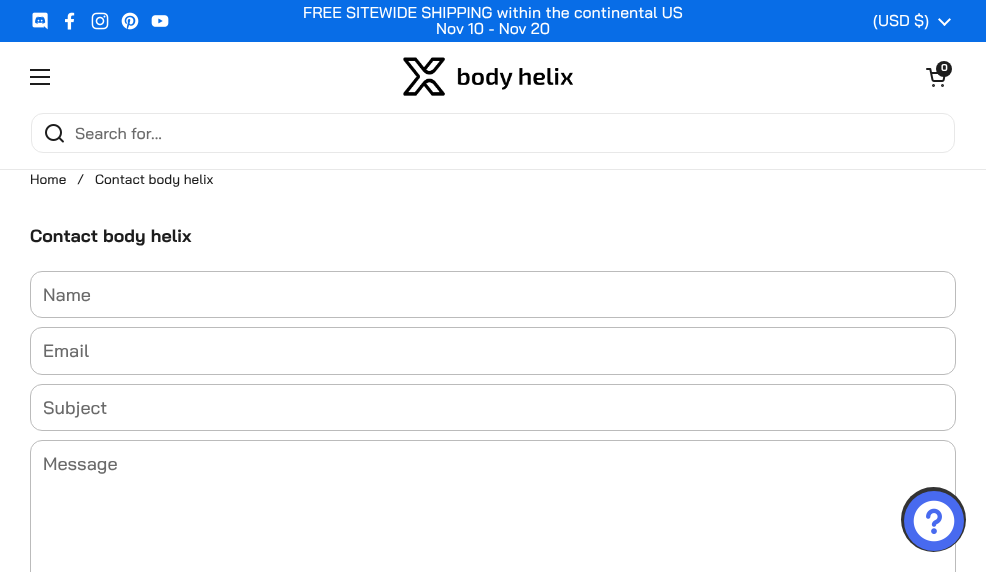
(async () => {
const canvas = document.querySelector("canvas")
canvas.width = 986
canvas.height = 572
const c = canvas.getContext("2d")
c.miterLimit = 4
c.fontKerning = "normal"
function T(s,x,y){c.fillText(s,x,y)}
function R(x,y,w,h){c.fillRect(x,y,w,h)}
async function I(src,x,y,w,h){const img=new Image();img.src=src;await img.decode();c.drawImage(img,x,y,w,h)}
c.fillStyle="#fff"
R(0,0,986,572)
c.fillStyle="#086de7"
R(0,0,986,42)
await I("1.png",32,12,16,18)
await I("2.png",65,12,10,18)
await I("3.png",91,12,18,18)
await I("4.png",121,12,18,18)
await I("5.png",151,15,18,12)
c.font="500 15.75px Bai Jamjuree"
c.fillStyle="#fff"
T("FREE SITEWIDE SHIPPING within the continental US",303,18)
T("Nov 10 - Nov 20",436,34)
T("(USD $)",873,26)
await I("6.png",938,18,13,8)
await I("7.png",403,57,170,39)
await I("8.png",926,68,20,19)
c.fillStyle="#1d1d1d"
c.beginPath()
c.arc(944,69,8,0,7)
c.fill()
c.font="bold 10px Bai Jamjuree"
c.fillStyle="#fff"
T("0",941,71)
c.fillStyle="#1d1d1d"
R(30,69,20,2)
R(30,76,20,2)
R(30,83,20,2)
c.fillStyle="#e8e8e8"
R(0,169,986,1)
c.beginPath()
c.roundRect(31.5,113.5,923,39,11.5)
c.strokeStyle="#e8e8e8"
c.stroke()
await I("9.png",45,124,19,19)
c.font="500 16px Bai Jamjuree"
c.fillStyle="#6a6a6a"
T("Search for...",75,139)
c.font="500 13.5px Bai Jamjuree"
c.fillStyle="#1d1d1d"
T("Home",30,184)
T("/",77,184)
T("Contact body helix",95,184)
c.font="bold 17.75px Bai Jamjuree"
T("Contact body helix",30,242)
c.beginPath()
c.roundRect(30.5,271.5,925,46,11.5)
c.strokeStyle="#bbb"
c.stroke()
c.font="500 18px Bai Jamjuree"
c.fillStyle="#6a6a6a"
T("Name",43,301)
c.beginPath()
c.roundRect(30.5,327.5,925,47,11.5)
c.stroke()
T("Email",43,357)
c.beginPath()
c.roundRect(30.5,384.5,925,46,11.5)
c.stroke()
T("Subject",43,414)
c.beginPath()
c.roundRect(30.5,440.5,925,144,11.5)
c.stroke()
T("Message",43,470)
c.fillStyle="#333"
c.beginPath()
c.arc(933.5,519.5,32.5,0,7)
c.fill()
c.fillStyle="#486aef"
c.beginPath()
c.arc(934,521,30,0,7)
c.fill()
await I("10.png",913,500,42,42)
})()
